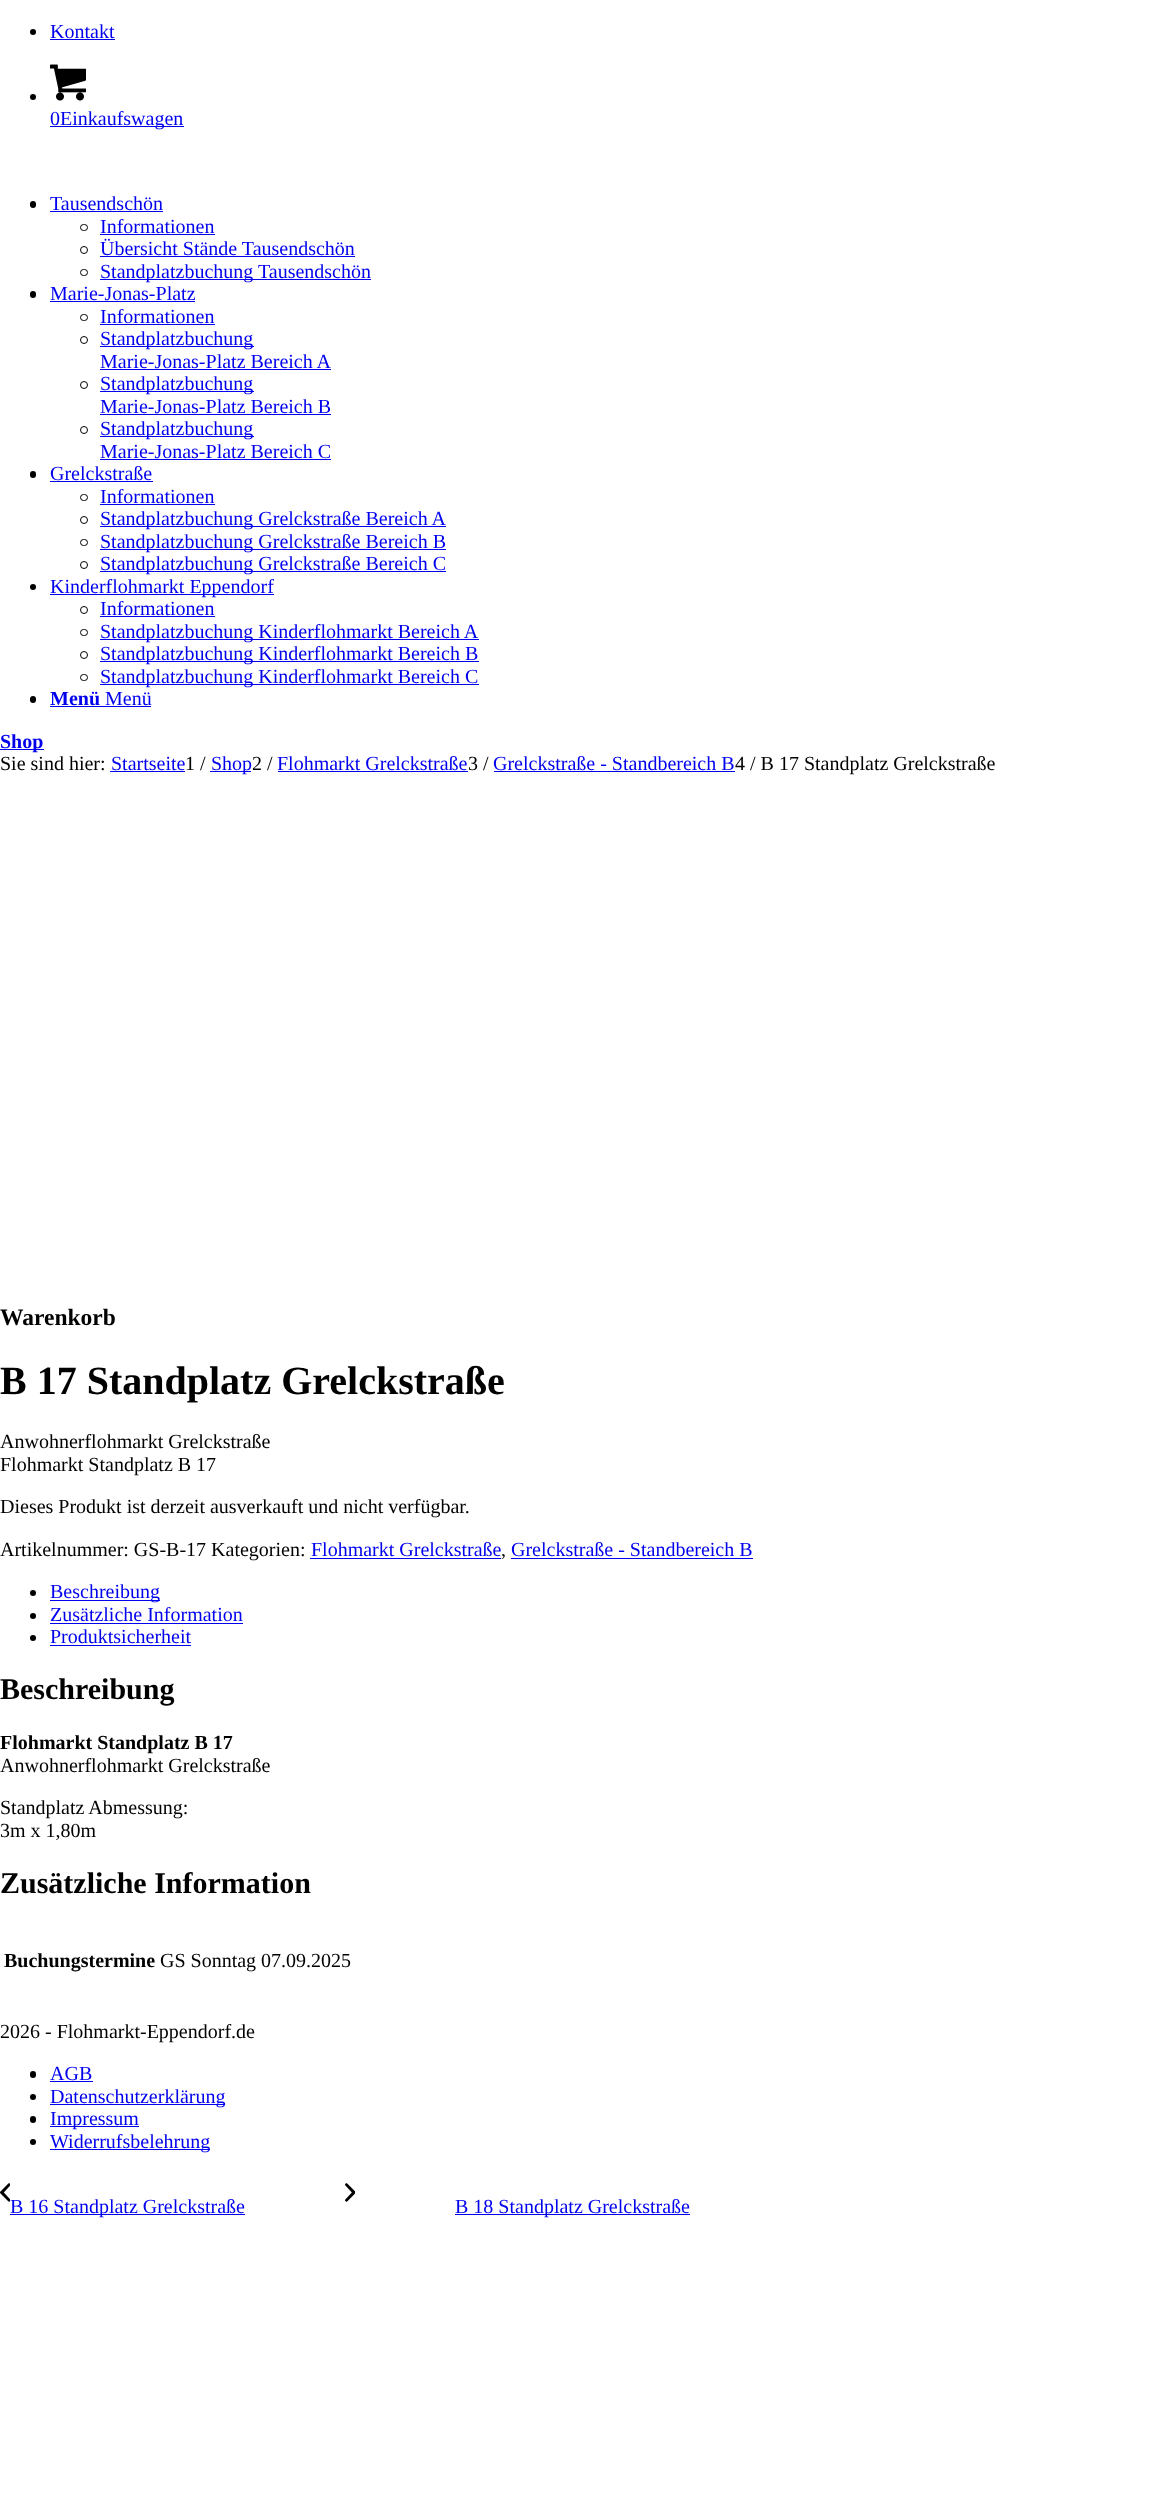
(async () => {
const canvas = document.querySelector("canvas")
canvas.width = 1167
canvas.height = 2499
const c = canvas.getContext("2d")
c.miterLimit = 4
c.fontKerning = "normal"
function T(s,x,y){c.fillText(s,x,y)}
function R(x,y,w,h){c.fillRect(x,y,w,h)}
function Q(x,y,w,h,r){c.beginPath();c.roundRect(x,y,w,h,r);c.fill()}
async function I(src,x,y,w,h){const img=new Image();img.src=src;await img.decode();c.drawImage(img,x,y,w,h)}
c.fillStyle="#fff"
R(0,0,1167,2499)
c.fillStyle="#000"
c.beginPath()
c.arc(33,32,3,0,7)
c.fill()
c.font="20px Liberation Serif"
c.fillStyle="#00e"
T("Kontakt",50,38)
R(50,39,65,1)
c.fillStyle="#000"
c.beginPath()
c.arc(33,97,3,0,7)
c.fill()
await I("1.png",50,64,36,37)
c.fillStyle="#00e"
R(50,126,134,1)
T("0Einkaufswagen",50,125)
c.fillStyle="#000"
Q(30,201,6,7,3)
c.fillStyle="#00e"
T("Tausendschön",50,210)
R(50,211,113,1)
c.beginPath()
c.roundRect(80.5,224.5,7,6,3)
c.strokeStyle="#000"
c.stroke()
T("Informationen",100,233)
R(100,234,115,1)
c.beginPath()
c.arc(84,250,3.5,0,7)
c.stroke()
T("Übersicht Stände Tausendschön",100,255)
R(100,256,255,1)
c.beginPath()
c.roundRect(80.5,269.5,7,6,3)
c.stroke()
R(100,279,271,1)
T("Standplatzbuchung Tausendschön",100,278)
c.fillStyle="#000"
Q(30,291,6,7,3)
c.fillStyle="#00e"
T("Marie-Jonas-Platz",50,300)
R(50,301,145,1)
c.beginPath()
c.roundRect(80.5,314.5,7,6,3)
c.stroke()
T("Informationen",100,323)
R(100,324,115,1)
c.beginPath()
c.arc(84,340,3.5,0,7)
c.stroke()
R(100,346,154,1)
T("Standplatzbuchung",100,345)
T("Marie-Jonas-Platz Bereich A",100,368)
R(100,369,231,1)
c.beginPath()
c.arc(84,385,3.5,0,7)
c.stroke()
R(100,391,154,1)
T("Standplatzbuchung",100,390)
T("Marie-Jonas-Platz Bereich B",100,413)
R(100,414,231,1)
c.beginPath()
c.arc(84,430,3.5,0,7)
c.stroke()
R(100,436,154,1)
T("Standplatzbuchung",100,435)
T("Marie-Jonas-Platz Bereich C",100,458)
R(100,459,231,1)
c.fillStyle="#000"
Q(30,471,6,7,3)
c.fillStyle="#00e"
T("Grelckstraße",50,480)
R(50,481,103,1)
c.beginPath()
c.roundRect(80.5,494.5,7,6,3)
c.stroke()
T("Informationen",100,503)
R(100,504,115,1)
c.beginPath()
c.arc(84,520,3.5,0,7)
c.stroke()
R(100,526,346,1)
T("Standplatzbuchung Grelckstraße Bereich A",100,525)
c.beginPath()
c.roundRect(80.5,539.5,7,6,3)
c.stroke()
R(100,549,346,1)
T("Standplatzbuchung Grelckstraße Bereich B",100,548)
c.beginPath()
c.arc(84,565,3.5,0,7)
c.stroke()
R(100,571,346,1)
T("Standplatzbuchung Grelckstraße Bereich C",100,570)
c.fillStyle="#000"
c.beginPath()
c.arc(33,587,3,0,7)
c.fill()
c.fillStyle="#00e"
R(50,594,224,1)
T("Kinderflohmarkt Eppendorf",50,593)
c.beginPath()
c.arc(84,610,3.5,0,7)
c.stroke()
T("Informationen",100,615)
R(100,616,115,1)
c.beginPath()
c.roundRect(80.5,629.5,7,6,3)
c.stroke()
R(100,639,379,1)
T("Standplatzbuchung Kinderflohmarkt Bereich A",100,638)
c.beginPath()
c.arc(84,655,3.5,0,7)
c.stroke()
R(100,661,379,1)
T("Standplatzbuchung Kinderflohmarkt Bereich B",100,660)
c.beginPath()
c.roundRect(80.5,674.5,7,6,3)
c.stroke()
R(100,684,379,1)
T("Standplatzbuchung Kinderflohmarkt Bereich C",100,683)
c.fillStyle="#000"
Q(30,696,6,7,3)
c.font="bold 20px Liberation Serif"
c.fillStyle="#00e"
T("Menü",50,705)
R(50,706,101,1)
c.font="20px Liberation Serif"
T("Menü",105,705)
R(0,749,44,1)
c.font="bold 20px Liberation Serif"
T("Shop",0,748)
c.font="20px Liberation Serif"
c.fillStyle="#000"
T("Sie sind hier:",0,770)
c.fillStyle="#00e"
T("Startseite",111,770)
R(110,771,75,1)
c.fillStyle="#000"
T("1 /",185,770)
c.fillStyle="#00e"
R(210,771,41,1)
T("Shop",211,770)
c.fillStyle="#000"
T("2 /",252,770)
c.fillStyle="#00e"
T("Flohmarkt Grelckstraße",277,770)
c.fillStyle="#000"
T("3 /",468,770)
c.fillStyle="#00e"
R(278,771,190,1)
T("Grelckstraße - Standbereich B",493,770)
c.fillStyle="#000"
T("4 / B 17 Standplatz Grelckstraße",735,770)
c.fillStyle="#00e"
R(494,771,241,1)
c.font="bold 23.5px Liberation Serif"
c.fillStyle="#000"
T("Warenkorb",0,1325)
c.font="bold 40px Liberation Serif"
T("B 17 Standplatz Grelckstraße",0,1394)
c.font="20px Liberation Serif"
T("Anwohnerflohmarkt Grelckstraße",0,1448)
T("Flohmarkt Standplatz B 17",0,1471)
T("Dieses Produkt ist derzeit ausverkauft und nicht verfügbar.",0,1513)
T("Artikelnummer: GS-B-17 Kategorien:",0,1556)
c.fillStyle="#00e"
T("Flohmarkt Grelckstraße",311,1556)
c.fillStyle="#000"
T(",",501,1556)
c.fillStyle="#00e"
R(310,1558,191,1)
R(511,1558,242,1)
T("Grelckstraße - Standbereich B",511,1556)
c.fillStyle="#000"
c.beginPath()
c.arc(33,1593,3,0,7)
c.fill()
c.fillStyle="#00e"
R(50,1600,110,1)
T("Beschreibung",50,1598)
c.fillStyle="#000"
c.beginPath()
c.arc(33,1616,3,0,7)
c.fill()
c.fillStyle="#00e"
T("Zusätzliche Information",50,1621)
R(50,1623,193,1)
c.fillStyle="#000"
c.beginPath()
c.arc(33,1638,3,0,7)
c.fill()
c.fillStyle="#00e"
T("Produktsicherheit",50,1643)
R(50,1645,141,1)
c.font="bold 30px Liberation Serif"
c.fillStyle="#000"
T("Beschreibung",0,1699)
c.font="bold 20px Liberation Serif"
T("Flohmarkt Standplatz B 17",0,1749)
c.font="20px Liberation Serif"
T("Anwohnerflohmarkt Grelckstraße",0,1772)
T("Standplatz Abmessung:",0,1814)
T("3m x 1,80m",0,1837)
c.font="bold 30px Liberation Serif"
T("Zusätzliche Information",0,1893)
c.font="bold 20px Liberation Serif"
T("Buchungstermine",4,1967)
c.font="20px Liberation Serif"
T("GS Sonntag 07.09.2025",160,1967)
T("2026 - Flohmarkt-Eppendorf.de",0,2038)
Q(30,2071,6,7,3)
c.fillStyle="#00e"
T("AGB",50,2080)
R(50,2081,43,1)
c.fillStyle="#000"
c.beginPath()
c.arc(33,2097,3,0,7)
c.fill()
c.fillStyle="#00e"
R(50,2104,175,1)
T("Datenschutzerklärung",50,2103)
c.fillStyle="#000"
Q(30,2116,6,7,3)
c.fillStyle="#00e"
R(50,2126,89,1)
T("Impressum",50,2125)
c.fillStyle="#000"
c.beginPath()
c.arc(33,2142,3,0,7)
c.fill()
c.fillStyle="#00e"
R(50,2149,160,1)
T("Widerrufsbelehrung",50,2148)
await I("2.png",0,2183,10,19)
await I("3.png",345,2183,10,19)
R(10,2214,235,1)
T("B 16 Standplatz Grelckstraße",10,2213)
R(455,2214,235,1)
T("B 18 Standplatz Grelckstraße",455,2213)
})()
